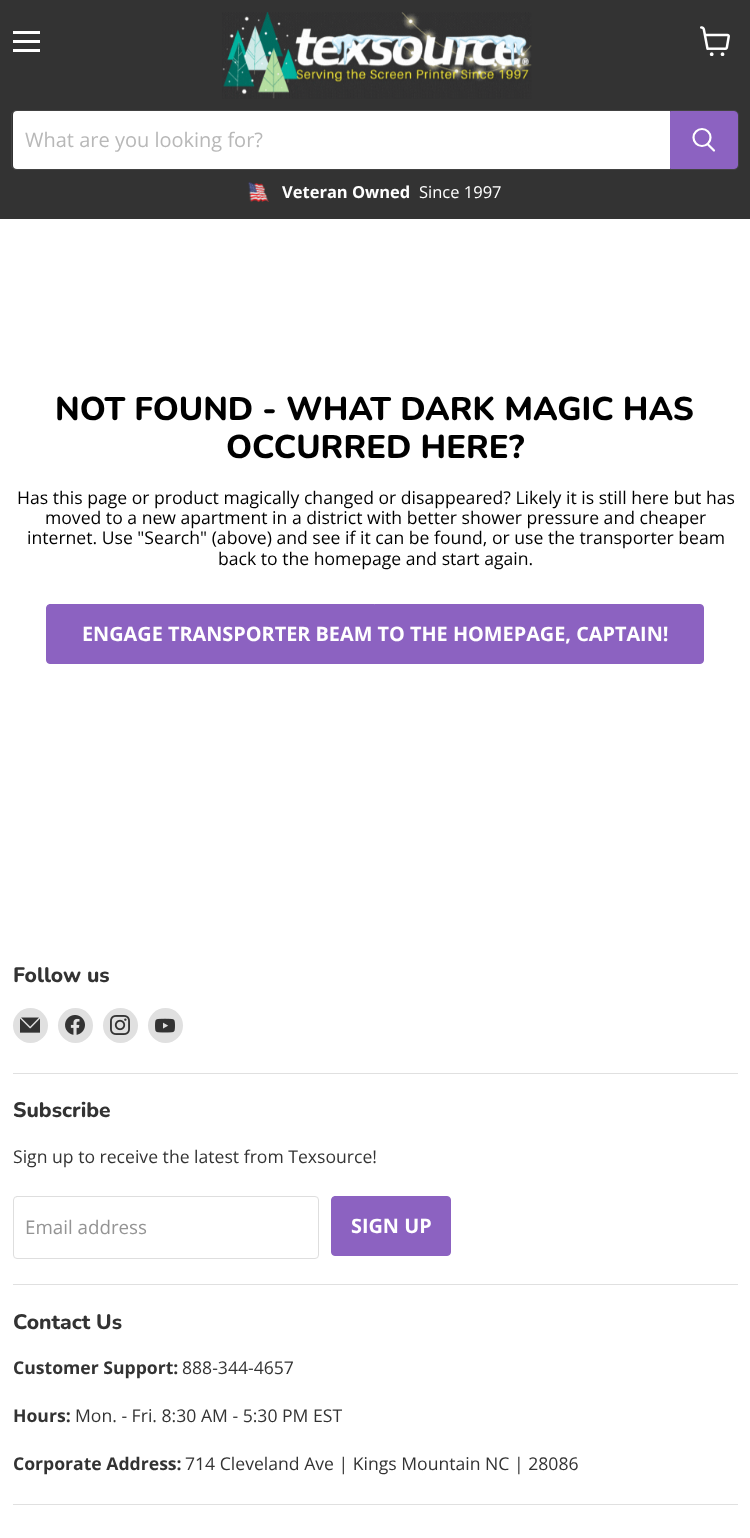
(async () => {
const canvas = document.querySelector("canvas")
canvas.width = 750
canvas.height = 1538
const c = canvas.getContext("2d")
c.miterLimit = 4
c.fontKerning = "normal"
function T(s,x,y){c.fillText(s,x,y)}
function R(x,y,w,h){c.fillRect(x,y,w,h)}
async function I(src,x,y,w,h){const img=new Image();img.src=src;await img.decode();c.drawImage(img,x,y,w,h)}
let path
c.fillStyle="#fff"
R(0,0,750,1538)
c.fillStyle="#333"
R(0,0,750,219)
c.fillStyle="#fff"
R(13,31,27,3)
R(13,40,27,3)
R(13,49,27,3)
await I("1.png",700,26,30,30)
await I("2.png",222,12,310,87)
c.beginPath()
c.roundRect(11.5,110.5,727,59,4.5)
c.strokeStyle="#80808033"
c.stroke()
c.beginPath()
c.roundRect(13,111,657,58,[4,0,0,4])
c.fill()
c.font="20px Open Sans"
c.fillStyle="#b8b8b8"
T("What are you looking for?",25,147)
c.fillStyle="#8c62c1"
c.beginPath()
c.roundRect(670.5,111.5,67,57,[0,3.5,3.5,0])
c.fill()
c.strokeStyle="#8c62c1"
c.stroke()
path = new Path2D("M714 150.5l-6-6")
c.strokeStyle="#fff"
c.lineWidth=2.2
c.lineCap="round"
c.stroke(path)
c.beginPath()
c.arc(702,137.5,8.5,0,7)
c.stroke()
await I("3.png",248,182,21,20)
c.font="bold 16.5px Open Sans"
c.fillStyle="#fff"
T("Veteran Owned",282,198)
c.font="16.5px Open Sans"
T("Since 1997",419,198)
c.font="800 32.8px Nunito"
c.fillStyle="#000"
T("NOT FOUND - WHAT DARK MAGIC HAS",55,420)
T("OCCURRED HERE?",226,458)
c.font="17.6px Open Sans"
T("Has this page or product magically changed or disappeared? Likely it is still here but has",17,504)
T("moved to a new apartment in a district with better shower pressure and cheaper",45,524)
T("internet. Use \"Search\" (above) and see if it can be found, or use the transporter beam",27,544)
T("back to the homepage and start again.",218,565)
c.fillStyle="#8c62c1"
c.beginPath()
c.roundRect(46.5,604.5,657,59,3.5)
c.fill()
c.strokeStyle="#8c62c1"
c.lineWidth=1
c.stroke()
c.font="bold 19.85px Open Sans"
c.fillStyle="#fff"
T("ENGAGE TRANSPORTER BEAM TO THE HOMEPAGE, CAPTAIN!",82,641)
c.fillStyle="#e0e0e0"
R(13,1073,725,1)
c.font="800 21px Nunito"
c.fillStyle="#333"
T("Follow us",13,982)
c.fillStyle="#e0e0e0"
c.beginPath()
c.arc(30.5,1025.5,17.5,0,7)
c.fill()
await I("4.png",20,1017,20,16)
c.beginPath()
c.arc(75.5,1025.5,17.5,0,7)
c.fill()
await I("5.png",65,1015,20,20)
c.beginPath()
c.arc(120.5,1025.5,17.5,0,7)
c.fill()
await I("6.png",110,1015,20,20)
c.beginPath()
c.arc(165.5,1025.5,17.5,0,7)
c.fill()
await I("7.png",155,1018,20,15)
R(13,1284,725,1)
c.fillStyle="#333"
T("Subscribe",13,1117)
c.font="17.6px Open Sans"
T("Sign up to receive the latest from Texsource!",13,1163)
c.beginPath()
c.roundRect(13.5,1196.5,305,62,3.5)
c.strokeStyle="#dedede"
c.stroke()
c.font="18.75px Open Sans"
c.fillStyle="#949494"
T("Email address",25,1234)
c.fillStyle="#8c62c1"
c.beginPath()
c.roundRect(331.5,1196.5,119,59,3.5)
c.fill()
c.strokeStyle="#8c62c1"
c.stroke()
c.font="bold 19.85px Open Sans"
c.fillStyle="#fff"
T("SIGN UP",351,1233)
c.fillStyle="#e0e0e0"
R(13,1504,725,1)
c.font="800 21px Nunito"
c.fillStyle="#333"
T("Contact Us",13,1329)
c.font="bold 17.6px Open Sans"
T("Customer Support:",13,1374)
c.font="17.6px Open Sans"
T("888-344-4657",182,1374)
c.font="bold 17.6px Open Sans"
T("Hours:",13,1422)
c.font="17.6px Open Sans"
T("Mon. - Fri. 8:30 AM - 5:30 PM EST",75,1422)
c.font="bold 17.6px Open Sans"
T("Corporate Address:",13,1470)
c.font="17.6px Open Sans"
T("714 Cleveland Ave | Kings Mountain NC | 28086",185,1470)
})()
